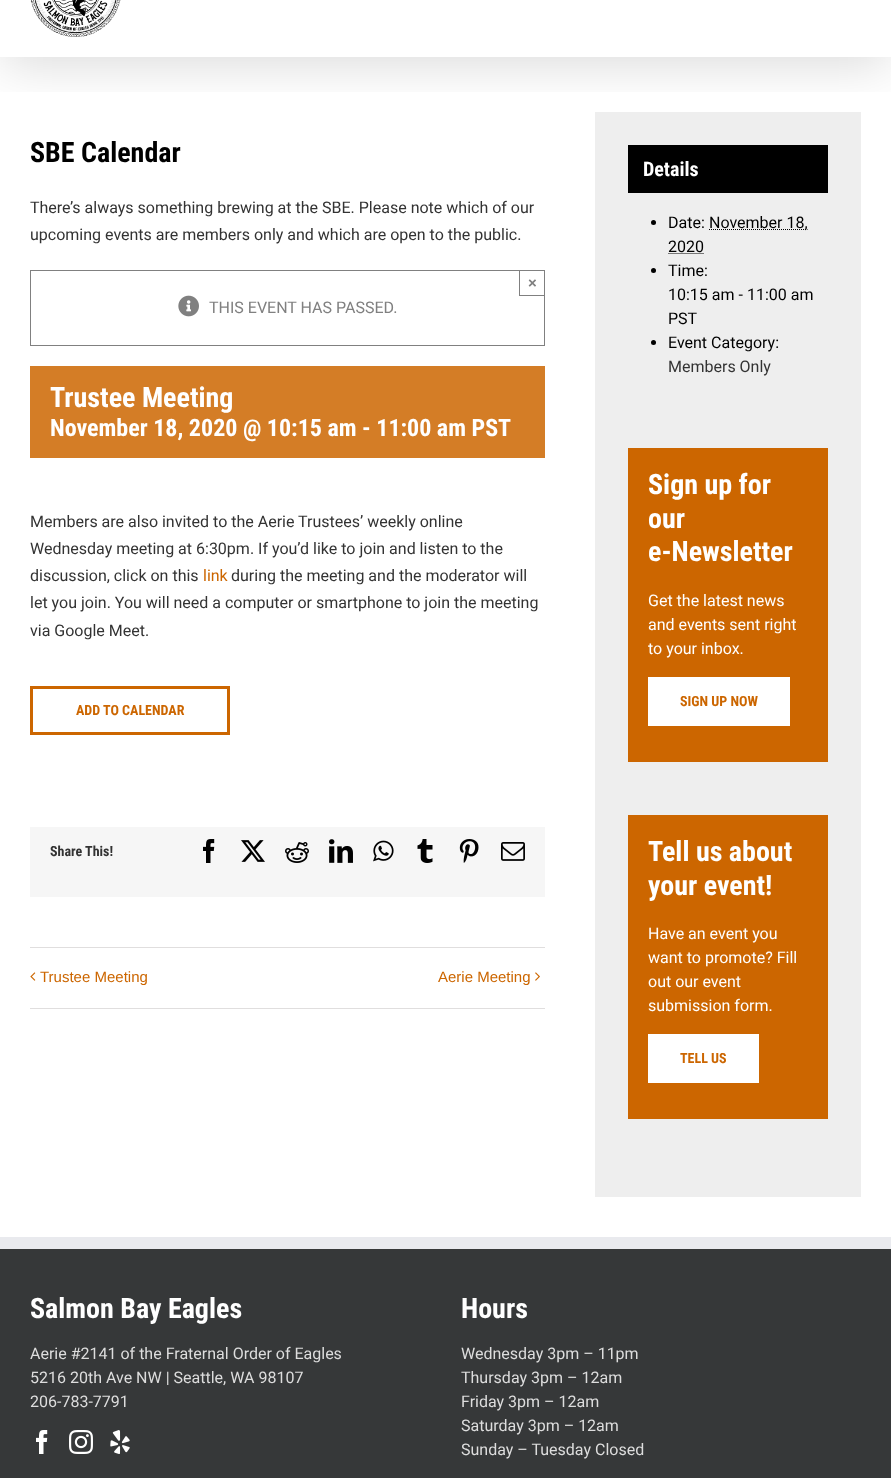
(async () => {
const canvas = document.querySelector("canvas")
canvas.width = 891
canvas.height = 1478
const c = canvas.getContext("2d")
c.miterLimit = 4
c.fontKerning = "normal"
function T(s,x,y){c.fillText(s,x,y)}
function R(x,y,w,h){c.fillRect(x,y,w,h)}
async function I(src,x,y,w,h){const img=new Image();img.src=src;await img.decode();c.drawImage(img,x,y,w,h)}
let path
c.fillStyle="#fff"
R(0,0,891,1478)
c.fillStyle="#eee"
R(595,112,266,1085)
c.save()
c.beginPath()
c.rect(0,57,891,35)
c.clip()
c.fillStyle="#00000024"
c.filter="blur(25px)"
c.beginPath()
c.rect(2,-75,887,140)
c.fill()
c.filter="none"
c.restore()
await I("1.png",30,0,91,37)
c.font="bold 28px Roboto Condensed"
c.fillStyle="#000"
T("SBE Calendar",30,162)
c.font="16px Roboto"
c.fillStyle="#333"
T("There’s always something brewing at the SBE. Please note which of our",30,213)
T("upcoming events are members only and which are open to the public.",30,240)
c.strokeStyle="#808080"
c.strokeRect(30.5,270.5,514,75)
c.fillStyle="#808080"
R(519,295,26,1)
R(519,270,1,26)
c.font="bold 15px Liberation Sans"
T("×",528,288)
await I("2.png",178,295,21,22)
c.font="16px Roboto"
T("THIS EVENT HAS PASSED.",209,313)
c.fillStyle="#d47d26"
R(30,366,515,92)
c.font="bold 28px Roboto Condensed"
c.fillStyle="#fff"
T("Trustee Meeting",50,407)
c.font="bold 24px Roboto Condensed"
T("November 18, 2020 @ 10:15 am - 11:00 am PST",50,436)
c.font="16px Roboto"
c.fillStyle="#333"
T("Members are also invited to the Aerie Trustees’ weekly online",30,527)
T("Wednesday meeting at 6:30pm. If you’d like to join and listen to the",30,554)
T("discussion, click on this",30,581)
c.fillStyle="#c60"
T("link",203,581)
c.fillStyle="#333"
T("during the meeting and the moderator will",231,581)
T("let you join. You will need a computer or smartphone to join the meeting",30,608)
T("via Google Meet.",30,636)
c.strokeStyle="#c60"
c.lineWidth=3
c.strokeRect(31.5,687.5,197,46)
c.font="bold 14px Roboto Condensed"
c.fillStyle="#c60"
T("ADD TO CALENDAR",76,715)
c.fillStyle="#f6f6f6"
R(30,827,515,70)
c.fillStyle="#333"
T("Share This!",50,856)
await I("3.png",203,839,12,24)
await I("4.png",241,840,24,22)
await I("5.png",285,842,24,21)
await I("6.png",329,839,24,24)
await I("7.png",373,840,21,22)
await I("8.png",417,839,16,24)
await I("9.png",459,839,20,24)
await I("10.png",501,842,24,19)
c.fillStyle="#e0dede"
R(30,947,515,1)
R(30,1008,515,1)
await I("11.png",30,972,6,9)
c.font="15px Liberation Sans"
c.fillStyle="#c60"
T("Trustee Meeting",40,982)
T("Aerie Meeting",438,982)
await I("12.png",535,972,5,9)
c.fillStyle="#000"
R(628,145,200,48)
c.font="bold 20px Roboto Condensed"
c.fillStyle="#fff"
T("Details",643,176)
c.fillStyle="#000"
c.beginPath()
c.arc(653.5,222.5,2.5,0,7)
c.fill()
c.font="16px Roboto"
T("Date:",668,228)
path = new Path2D("M709 229.5h98.5")
c.strokeStyle="#000"
c.lineWidth=1
c.setLineDash([1,1])
c.stroke(path)
T("November 18,",709,228)
T("2020",668,252)
path = new Path2D("M668.5 253.5h36")
c.stroke(path)
c.beginPath()
c.arc(653.5,270.5,2.5,0,7)
c.fill()
T("Time:",668,276)
T("10:15 am - 11:00 am",668,300)
T("PST",668,324)
c.beginPath()
c.arc(653.5,342.5,2.5,0,7)
c.fill()
T("Event Category:",668,348)
c.fillStyle="#333"
T("Members Only",668,372)
c.fillStyle="#c60"
R(628,448,200,314)
c.font="bold 28px Roboto Condensed"
c.fillStyle="#fff"
T("Sign up for",648,494)
T("our",648,528)
T("e-Newsletter",648,561)
c.font="16px Roboto"
T("Get the latest news",648,606)
T("and events sent right",648,630)
T("to your inbox.",648,654)
R(648,677,142,49)
c.font="bold 14px Roboto Condensed"
c.fillStyle="#c60"
T("SIGN UP NOW",680,706)
R(628,815,200,304)
c.font="bold 28px Roboto Condensed"
c.fillStyle="#fff"
T("Tell us about",648,861)
T("your event!",648,895)
c.font="16px Roboto"
T("Have an event you",648,939)
T("want to promote? Fill",648,963)
T("out our event",648,987)
T("submission form.",648,1011)
R(648,1034,111,49)
c.font="bold 14px Roboto Condensed"
c.fillStyle="#c60"
T("TELL US",680,1063)
c.fillStyle="#363839"
R(0,1249,891,229)
c.fillStyle="#e9eaee"
R(0,1237,891,12)
c.font="bold 28px Roboto Condensed"
c.fillStyle="#fff"
T("Salmon Bay Eagles",30,1318)
c.font="16px Roboto"
c.fillStyle="#ddd"
T("Aerie #2141 of the Fraternal Order of Eagles",30,1359)
T("5216 20th Ave NW | Seattle, WA 98107",30,1383)
T("206-783-7791",30,1407)
await I("13.png",36,1430,12,24)
await I("14.png",69,1430,24,24)
await I("15.png",110,1430,20,24)
c.font="bold 28px Roboto Condensed"
c.fillStyle="#fff"
T("Hours",461,1318)
c.font="16px Roboto"
c.fillStyle="#ddd"
T("Wednesday 3pm – 11pm",461,1359)
T("Thursday 3pm – 12am",461,1383)
T("Friday 3pm – 12am",461,1407)
T("Saturday 3pm – 12am",461,1431)
T("Sunday – Tuesday Closed",461,1455)
})()
